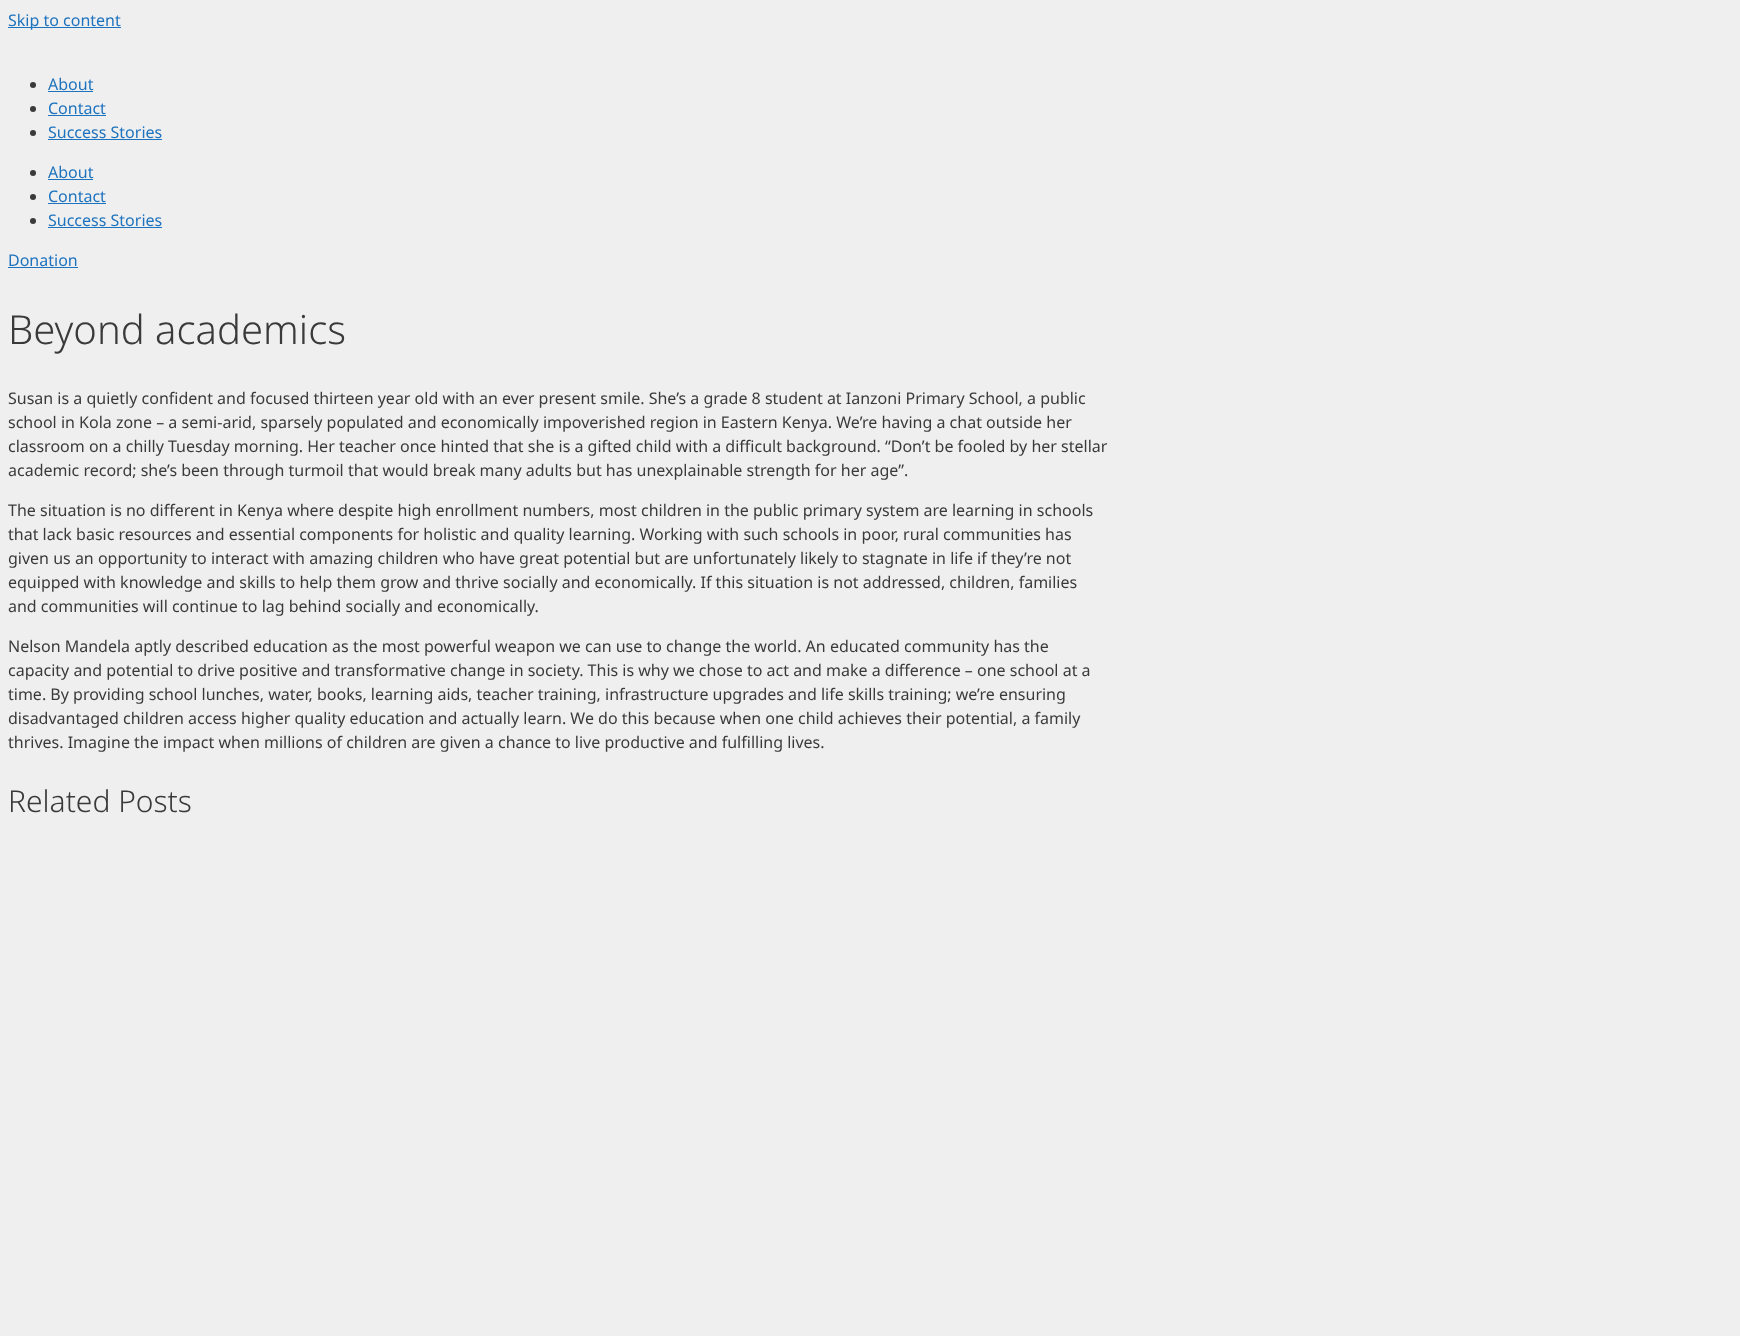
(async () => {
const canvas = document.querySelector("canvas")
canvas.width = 1740
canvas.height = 1336
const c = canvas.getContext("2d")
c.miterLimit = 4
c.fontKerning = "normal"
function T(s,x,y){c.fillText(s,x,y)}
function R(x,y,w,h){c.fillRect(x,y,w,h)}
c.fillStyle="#efefef"
R(0,0,1740,1336)
c.fillStyle="#1e73be"
R(8,27,113,1)
c.font="16px Noto Sans"
T("Skip to content",8,26)
c.fillStyle="#3a3a3a"
c.beginPath()
c.arc(33,85,3,0,7)
c.fill()
c.fillStyle="#1e73be"
T("About",48,90)
R(48,91,45,1)
c.fillStyle="#3a3a3a"
c.beginPath()
c.arc(33,109,3,0,7)
c.fill()
c.fillStyle="#1e73be"
T("Contact",48,114)
R(48,115,58,1)
c.fillStyle="#3a3a3a"
c.beginPath()
c.arc(33,133,3,0,7)
c.fill()
c.fillStyle="#1e73be"
T("Success Stories",48,138)
R(48,139,114,1)
c.fillStyle="#3a3a3a"
c.beginPath()
c.arc(33,173,3,0,7)
c.fill()
c.fillStyle="#1e73be"
T("About",48,178)
R(48,179,45,1)
c.fillStyle="#3a3a3a"
c.beginPath()
c.arc(33,197,3,0,7)
c.fill()
c.fillStyle="#1e73be"
T("Contact",48,202)
R(48,203,58,1)
c.fillStyle="#3a3a3a"
c.beginPath()
c.arc(33,221,3,0,7)
c.fill()
c.fillStyle="#1e73be"
T("Success Stories",48,226)
R(48,227,114,1)
T("Donation",8,266)
R(8,267,70,1)
c.font="300 40px Noto Sans"
c.fillStyle="#3a3a3a"
T("Beyond academics",8,344)
c.font="16px Noto Sans"
T("Susan is a quietly confident and focused thirteen year old with an ever present smile. She’s a grade 8 student at Ianzoni Primary School, a public",8,404)
T("school in Kola zone – a semi-arid, sparsely populated and economically impoverished region in Eastern Kenya. We’re having a chat outside her",8,428)
T("classroom on a chilly Tuesday morning. Her teacher once hinted that she is a gifted child with a difficult background. “Don’t be fooled by her stellar",8,452)
T("academic record; she’s been through turmoil that would break many adults but has unexplainable strength for her age”.",8,476)
T("The situation is no different in Kenya where despite high enrollment numbers, most children in the public primary system are learning in schools",8,516)
T("that lack basic resources and essential components for holistic and quality learning. Working with such schools in poor, rural communities has",8,540)
T("given us an opportunity to interact with amazing children who have great potential but are unfortunately likely to stagnate in life if they’re not",8,564)
T("equipped with knowledge and skills to help them grow and thrive socially and economically. If this situation is not addressed, children, families",8,588)
T("and communities will continue to lag behind socially and economically.",8,612)
T("Nelson Mandela aptly described education as the most powerful weapon we can use to change the world. An educated community has the",8,652)
T("capacity and potential to drive positive and transformative change in society. This is why we chose to act and make a difference – one school at a",8,676)
T("time. By providing school lunches, water, books, learning aids, teacher training, infrastructure upgrades and life skills training; we’re ensuring",8,700)
T("disadvantaged children access higher quality education and actually learn. We do this because when one child achieves their potential, a family",8,724)
T("thrives. Imagine the impact when millions of children are given a chance to live productive and fulfilling lives.",8,748)
c.font="300 30px Noto Sans"
T("Related Posts",8,812)
})()
